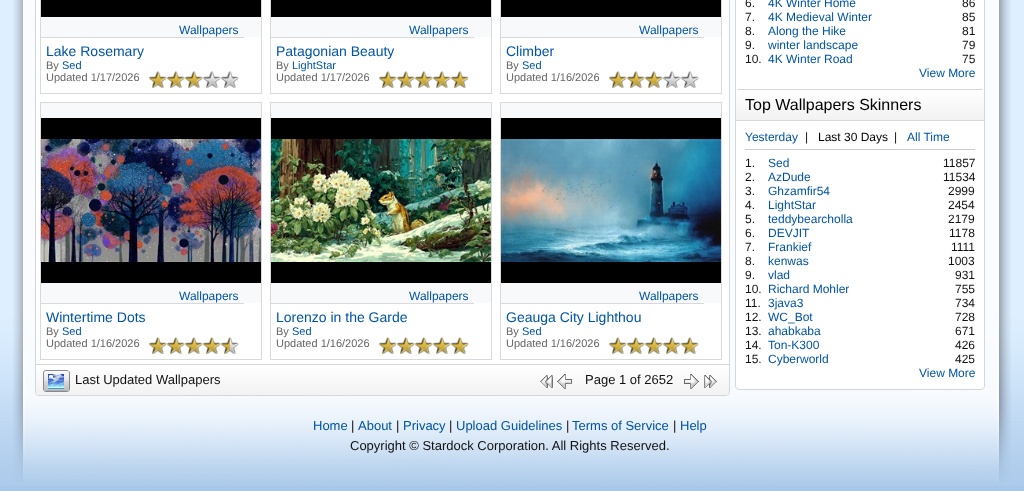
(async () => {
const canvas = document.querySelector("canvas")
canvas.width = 1024
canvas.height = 491
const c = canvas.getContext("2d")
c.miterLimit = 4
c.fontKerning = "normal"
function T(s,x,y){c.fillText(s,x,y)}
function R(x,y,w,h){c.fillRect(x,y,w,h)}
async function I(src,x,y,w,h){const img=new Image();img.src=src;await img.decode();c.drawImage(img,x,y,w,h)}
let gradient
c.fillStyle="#a8c7e9"
R(0,0,1024,491)
await I("1.png",0,0,1024,486)
await I("2.png",13,0,998,391)
await I("14.png",13,391,998,91)
c.fillStyle="#fff"
c.beginPath()
c.roundRect(35.5,-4.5,694,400,3.5)
c.fill()
c.strokeStyle="#d4d6da"
c.stroke()
c.strokeStyle="#d8d9db"
c.strokeRect(40.5,-.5,221,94)
c.fillStyle="#f8f9fb"
R(41,17,220,20)
c.fillStyle="#000"
R(41,0,220,17)
c.font="12px Liberation Sans"
c.fillStyle="#0054a6"
T("Wallpapers",179,34)
c.fillStyle="#d8d9db"
R(41,37,203,1)
c.font="14px Liberation Sans"
c.fillStyle="#0054a6"
T("Lake Rosemary",46,56)
c.font="11px Liberation Sans"
c.fillStyle="#666"
T("By",46,69)
c.fillStyle="#0054a6"
T("Sed",62,69)
c.fillStyle="#666"
T("Updated 1/17/2026",46,81)
await I("3.png",149,71,90,17)
c.strokeRect(270.5,-.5,221,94)
c.fillStyle="#f8f9fb"
R(271,17,220,20)
c.fillStyle="#000"
R(271,0,220,17)
c.font="12px Liberation Sans"
c.fillStyle="#0054a6"
T("Wallpapers",409,34)
c.fillStyle="#d8d9db"
R(271,37,203,1)
c.font="14px Liberation Sans"
c.fillStyle="#0054a6"
T("Patagonian Beauty",276,56)
c.font="11px Liberation Sans"
c.fillStyle="#666"
T("By",276,69)
c.fillStyle="#0054a6"
T("LightStar",292,69)
c.fillStyle="#666"
T("Updated 1/17/2026",276,81)
await I("4.png",379,71,90,17)
c.strokeRect(500.5,-.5,221,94)
c.fillStyle="#f8f9fb"
R(501,17,220,20)
c.fillStyle="#000"
R(501,0,220,17)
c.font="12px Liberation Sans"
c.fillStyle="#0054a6"
T("Wallpapers",639,34)
c.fillStyle="#d8d9db"
R(501,37,203,1)
c.font="14px Liberation Sans"
c.fillStyle="#0054a6"
T("Climber",506,56)
c.font="11px Liberation Sans"
c.fillStyle="#666"
T("By",506,69)
c.fillStyle="#0054a6"
T("Sed",522,69)
c.fillStyle="#666"
T("Updated 1/16/2026",506,81)
await I("3.png",609,71,90,17)
c.strokeRect(40.5,102.5,221,257)
c.fillStyle="#f8f9fb"
R(41,103,220,200)
c.fillStyle="#000"
R(41,118,220,165)
await I("5.png",41,139,220,123)
c.font="12px Liberation Sans"
c.fillStyle="#0054a6"
T("Wallpapers",179,300)
c.fillStyle="#d8d9db"
R(41,303,203,1)
c.font="14px Liberation Sans"
c.fillStyle="#0054a6"
T("Wintertime Dots",46,322)
c.font="11px Liberation Sans"
c.fillStyle="#666"
T("By",46,335)
c.fillStyle="#0054a6"
T("Sed",62,335)
c.fillStyle="#666"
T("Updated 1/16/2026",46,347)
await I("6.png",149,337,90,17)
c.strokeRect(270.5,102.5,221,257)
c.fillStyle="#f8f9fb"
R(271,103,220,200)
c.fillStyle="#000"
R(271,118,220,165)
await I("7.png",271,139,220,123)
c.font="12px Liberation Sans"
c.fillStyle="#0054a6"
T("Wallpapers",409,300)
c.fillStyle="#d8d9db"
R(271,303,203,1)
c.font="14px Liberation Sans"
c.fillStyle="#0054a6"
T("Lorenzo in the Garde",276,322)
c.font="11px Liberation Sans"
c.fillStyle="#666"
T("By",276,335)
c.fillStyle="#0054a6"
T("Sed",292,335)
c.fillStyle="#666"
T("Updated 1/16/2026",276,347)
await I("4.png",379,337,90,17)
c.strokeRect(500.5,102.5,221,257)
c.fillStyle="#f8f9fb"
R(501,103,220,200)
c.fillStyle="#000"
R(501,118,220,165)
await I("8.png",501,139,220,123)
c.font="12px Liberation Sans"
c.fillStyle="#0054a6"
T("Wallpapers",639,300)
c.fillStyle="#d8d9db"
R(501,303,203,1)
c.font="14px Liberation Sans"
c.fillStyle="#0054a6"
T("Geauga City Lighthou",506,322)
c.font="11px Liberation Sans"
c.fillStyle="#666"
T("By",506,335)
c.fillStyle="#0054a6"
T("Sed",522,335)
c.fillStyle="#666"
T("Updated 1/16/2026",506,347)
await I("4.png",609,337,90,17)
gradient = c.createLinearGradient(383,365,383,395)
gradient.addColorStop(0,"#fff")
gradient.addColorStop(1,"#f2f2f2")
c.fillStyle = gradient
c.beginPath()
c.roundRect(36,365,693,30,[0,0,4,4])
c.fill()
c.fillStyle="#d4d6da"
R(36,364,693,1)
await I("9.png",43,370,27,22)
c.font="13px Liberation Sans"
c.fillStyle="#111"
T("Last Updated Wallpapers",75,384)
await I("10.png",540,375,13,13)
await I("11.png",557,374,15,15)
T("Page 1 of 2652",585,384)
await I("12.png",684,374,15,15)
await I("13.png",704,375,13,13)
c.fillStyle="#fff"
c.beginPath()
c.roundRect(735.5,-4.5,249,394,3.5)
c.fill()
c.strokeStyle="#d4d6da"
c.stroke()
c.font="12px Liberation Sans"
c.fillStyle="#111"
T("6.",745,7)
c.fillStyle="#0054a6"
T("4K Winter Home",768,7)
c.fillStyle="#111"
T("86",962,7)
T("7.",745,21)
c.fillStyle="#0054a6"
T("4K Medieval Winter",768,21)
c.fillStyle="#111"
T("85",962,21)
T("8.",745,35)
c.fillStyle="#0054a6"
T("Along the Hike",768,35)
c.fillStyle="#111"
T("81",962,35)
T("9.",745,49)
c.fillStyle="#0054a6"
T("winter landscape",768,49)
c.fillStyle="#111"
T("79",962,49)
T("10.",745,63)
c.fillStyle="#0054a6"
T("4K Winter Road",768,63)
c.fillStyle="#111"
T("75",962,63)
c.fillStyle="#0054a6"
T("View More",919,77)
c.save()
c.beginPath()
c.roundRect(736,89,248,32,[4,4,0,0])
c.clip()
gradient = c.createLinearGradient(860,90,860,120)
gradient.addColorStop(0,"#fff")
gradient.addColorStop(1,"#f2f2f2")
c.fillStyle = gradient
R(736,90,248,30)
c.restore()
c.fillStyle="#d4d6da"
R(738,89,244,1)
R(736,120,248,1)
c.font="16px Liberation Sans"
c.fillStyle="#000"
T("Top Wallpapers Skinners",745,110)
c.font="12px Liberation Sans"
c.fillStyle="#0054a6"
T("Yesterday",745,141)
c.fillStyle="#111"
T("|",805,141)
c.fillStyle="#000"
T("Last 30 Days",818,141)
c.fillStyle="#111"
T("|",894,141)
c.fillStyle="#0054a6"
T("All Time",907,141)
c.fillStyle="#ccc"
R(745,149,230,1)
c.fillStyle="#111"
T("1.",745,167)
c.fillStyle="#0054a6"
T("Sed",768,167)
c.fillStyle="#111"
T("11857",943,167)
T("2.",745,181)
c.fillStyle="#0054a6"
T("AzDude",768,181)
c.fillStyle="#111"
T("11534",943,181)
T("3.",745,195)
c.fillStyle="#0054a6"
T("Ghzamfir54",768,195)
c.fillStyle="#111"
T("2999",948,195)
T("4.",745,209)
c.fillStyle="#0054a6"
T("LightStar",768,209)
c.fillStyle="#111"
T("2454",948,209)
T("5.",745,223)
c.fillStyle="#0054a6"
T("teddybearcholla",768,223)
c.fillStyle="#111"
T("2179",948,223)
T("6.",745,237)
c.fillStyle="#0054a6"
T("DEVJIT",768,237)
c.fillStyle="#111"
T("1178",949,237)
T("7.",745,251)
c.fillStyle="#0054a6"
T("Frankief",768,251)
c.fillStyle="#111"
T("1111",951,251)
T("8.",745,265)
c.fillStyle="#0054a6"
T("kenwas",768,265)
c.fillStyle="#111"
T("1003",948,265)
T("9.",745,279)
c.fillStyle="#0054a6"
T("vlad",768,279)
c.fillStyle="#111"
T("931",955,279)
T("10.",745,293)
c.fillStyle="#0054a6"
T("Richard Mohler",768,293)
c.fillStyle="#111"
T("755",955,293)
T("11.",745,307)
c.fillStyle="#0054a6"
T("3java3",768,307)
c.fillStyle="#111"
T("734",955,307)
T("12.",745,321)
c.fillStyle="#0054a6"
T("WC_Bot",768,321)
c.fillStyle="#111"
T("728",955,321)
T("13.",745,335)
c.fillStyle="#0054a6"
T("ahabkaba",768,335)
c.fillStyle="#111"
T("671",955,335)
T("14.",745,349)
c.fillStyle="#0054a6"
T("Ton-K300",768,349)
c.fillStyle="#111"
T("426",955,349)
T("15.",745,363)
c.fillStyle="#0054a6"
T("Cyberworld",768,363)
c.fillStyle="#111"
T("425",955,363)
c.fillStyle="#0054a6"
T("View More",919,377)
c.font="13px Liberation Sans"
T("Home",313,430)
c.fillStyle="#111"
T("|",351,430)
c.fillStyle="#0054a6"
T("About",358,430)
c.fillStyle="#111"
T("|",396,430)
c.fillStyle="#0054a6"
T("Privacy",403,430)
c.fillStyle="#111"
T("|",449,430)
c.fillStyle="#0054a6"
T("Upload Guidelines",456,430)
c.fillStyle="#111"
T("|",566,430)
c.fillStyle="#0054a6"
T("Terms of Service",572,430)
c.fillStyle="#111"
T("|",673,430)
c.fillStyle="#0054a6"
T("Help",680,430)
c.fillStyle="#111"
T("Copyright © Stardock Corporation. All Rights Reserved.",350,450)
})()
